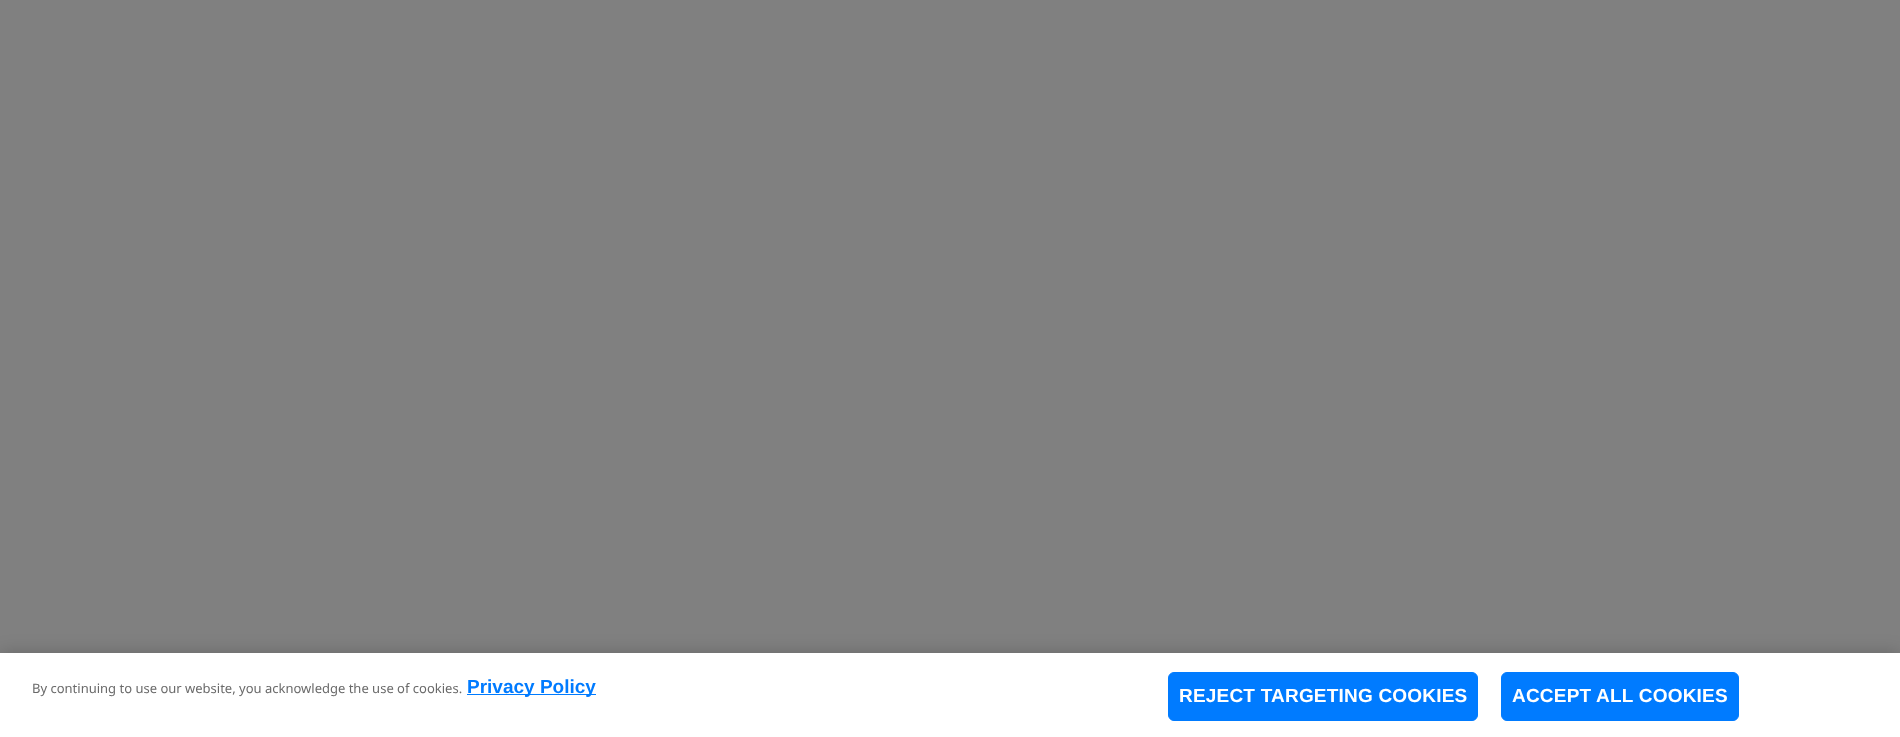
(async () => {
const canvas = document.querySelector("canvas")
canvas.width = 1900
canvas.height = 737
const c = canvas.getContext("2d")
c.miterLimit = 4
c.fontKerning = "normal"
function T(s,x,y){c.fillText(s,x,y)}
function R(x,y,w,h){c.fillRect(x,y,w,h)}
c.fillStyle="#808080"
R(0,0,1900,737)
c.fillStyle="#00000033"
c.filter="blur(9px)"
c.beginPath()
c.rect(0,653,1900,84)
c.fill()
c.filter="none"
c.fillStyle="#fff"
R(0,653,1900,84)
c.font="13px Noto Sans"
c.fillStyle="#696969"
T("By continuing to use our website, you acknowledge the use of cookies.",32,693)
c.fillStyle="#007bff"
R(467,694,129,1)
c.font="bold 19px Liberation Sans"
T("Privacy Policy",467,693)
c.beginPath()
c.roundRect(1168.5,672.5,309,48,5.5)
c.fill()
c.strokeStyle="#007bff"
c.stroke()
c.letterSpacing="0.2px"
c.fillStyle="#fff"
T("REJECT TARGETING COOKIES",1179,702)
c.fillStyle="#007bff"
c.beginPath()
c.roundRect(1501.5,672.5,237,48,5.5)
c.fill()
c.stroke()
c.fillStyle="#fff"
T("ACCEPT ALL COOKIES",1512,702)
})()
